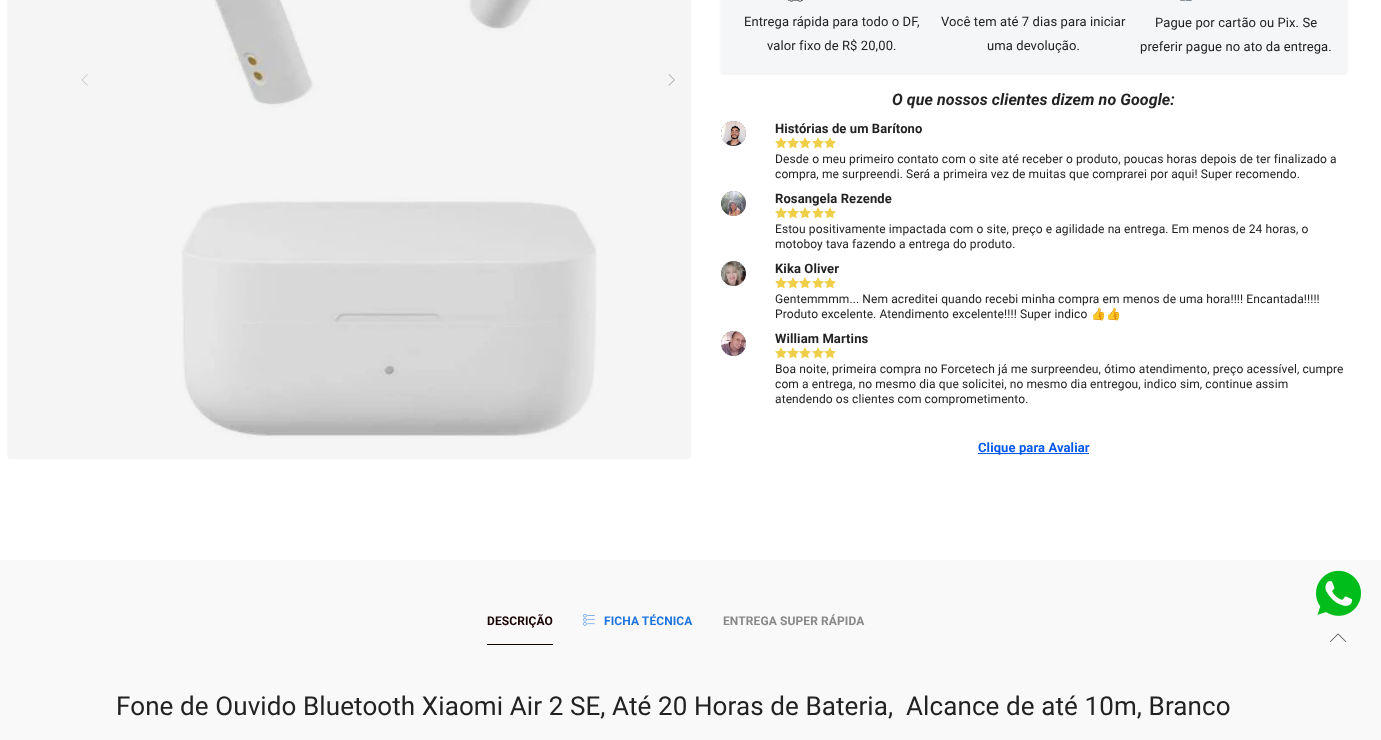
(async () => {
const canvas = document.querySelector("canvas")
canvas.width = 1381
canvas.height = 740
const c = canvas.getContext("2d")
c.miterLimit = 4
c.fontKerning = "normal"
function T(s,x,y){c.fillText(s,x,y)}
function R(x,y,w,h){c.fillRect(x,y,w,h)}
function Q(x,y,w,h,r){c.beginPath();c.roundRect(x,y,w,h,r);c.fill()}
async function I(src,x,y,w,h){const img=new Image();img.src=src;await img.decode();c.drawImage(img,x,y,w,h)}
c.fillStyle="#fff"
R(0,0,1381,740)
c.fillStyle="#f5f5f5"
Q(7,-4,684,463,4)
await I("1.png",81,74,7,12)
await I("2.png",181,0,416,438)
await I("3.png",668,74,7,12)
c.fillStyle="#00000014"
c.filter="blur(1px)"
c.beginPath()
c.roundRect(721,-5,626,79,2)
c.fill()
c.filter="none"
c.fillStyle="#f5f6f7"
Q(721,-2,626,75,2)
await I("4.png",788,0,15,2)
c.letterSpacing="0.1px"
c.font="13px Roboto"
c.fillStyle="#222"
T("Entrega rápida para todo o DF,",744,26)
T("valor fixo de R$ 20,00.",767,50)
T("Você tem até 7 dias para iniciar",941,26)
T("uma devolução.",987,50)
await I("5.png",1180,0,12,1)
T("Pague por cartão ou Pix. Se",1155,27)
T("preferir pague no ato da entrega.",1140,51)
c.font="italic bold 16px Roboto"
T("O que nossos clientes dizem no Google:",892,105)
await I("6.png",721,121,25,25)
c.font="bold 13px Roboto"
T("Histórias de um Barítono",775,133)
await I("7.png",775,137,12,12)
await I("7.png",787,137,12,12)
await I("7.png",799,137,12,12)
await I("7.png",812,137,12,12)
await I("7.png",824,137,12,12)
c.font="12px Roboto"
T("Desde o meu primeiro contato com o site até receber o produto, poucas horas depois de ter finalizado a",775,163)
T("compra, me surpreendi. Será a primeira vez de muitas que comprarei por aqui! Super recomendo.",775,178)
await I("8.png",721,191,25,25)
c.font="bold 13px Roboto"
T("Rosangela Rezende",775,203)
await I("7.png",775,207,12,12)
await I("7.png",787,207,12,12)
await I("7.png",799,207,12,12)
await I("7.png",812,207,12,12)
await I("7.png",824,207,12,12)
c.font="12px Roboto"
T("Estou positivamente impactada com o site, preço e agilidade na entrega. Em menos de 24 horas, o",775,233)
T("motoboy tava fazendo a entrega do produto.",775,248)
await I("9.png",721,261,25,25)
c.font="bold 13px Roboto"
T("Kika Oliver",775,273)
await I("7.png",775,277,12,12)
await I("7.png",787,277,12,12)
await I("7.png",799,277,12,12)
await I("7.png",812,277,12,12)
await I("7.png",824,277,12,12)
c.font="12px Roboto"
T("Gentemmmm... Nem acreditei quando recebi minha compra em menos de uma hora!!!! Encantada!!!!!",775,303)
T("Produto excelente. Atendimento excelente!!!! Super indico",775,318)
c.font="12px Noto Color Emoji"
T("👍👍",1091,318)
await I("10.png",721,331,25,25)
c.font="bold 13px Roboto"
T("William Martins",775,343)
await I("7.png",775,347,12,12)
await I("7.png",787,347,12,12)
await I("7.png",799,347,12,12)
await I("7.png",812,347,12,12)
await I("7.png",824,347,12,12)
c.font="12px Roboto"
T("Boa noite, primeira compra no Forcetech já me surpreendeu, ótimo atendimento, preço acessível, cumpre",775,373)
T("com a entrega, no mesmo dia que solicitei, no mesmo dia entregou, indico sim, continue assim",775,388)
T("atendendo os clientes com comprometimento.",775,403)
c.fillStyle="#0358eb"
R(978,453,111,1)
c.font="bold 13px Roboto"
T("Clique para Avaliar",978,452)
c.fillStyle="#f9f9f9"
R(0,560,1381,180)
c.fillStyle="#160101"
R(487,644,66,1)
c.font="bold 12px Roboto"
T("DESCRIÇÃO",487,625)
await I("11.png",583,614,12,12)
c.fillStyle="#1d74de"
T("FICHA TÉCNICA",604,625)
c.fillStyle="#888"
T("ENTREGA SUPER RÁPIDA",723,625)
c.font="26px Roboto"
c.fillStyle="#222"
T("Fone de Ouvido Bluetooth Xiaomi Air 2 SE, Até 20 Horas de Bateria,",116,715)
T("Alcance de até 10m, Branco",906,715)
c.fillStyle="#fff"
c.beginPath()
c.arc(1338.5,592.5,22.5,0,7)
c.fill()
await I("12.png",1316,570,45,46)
await I("13.png",1330,633,17,9)
})()
